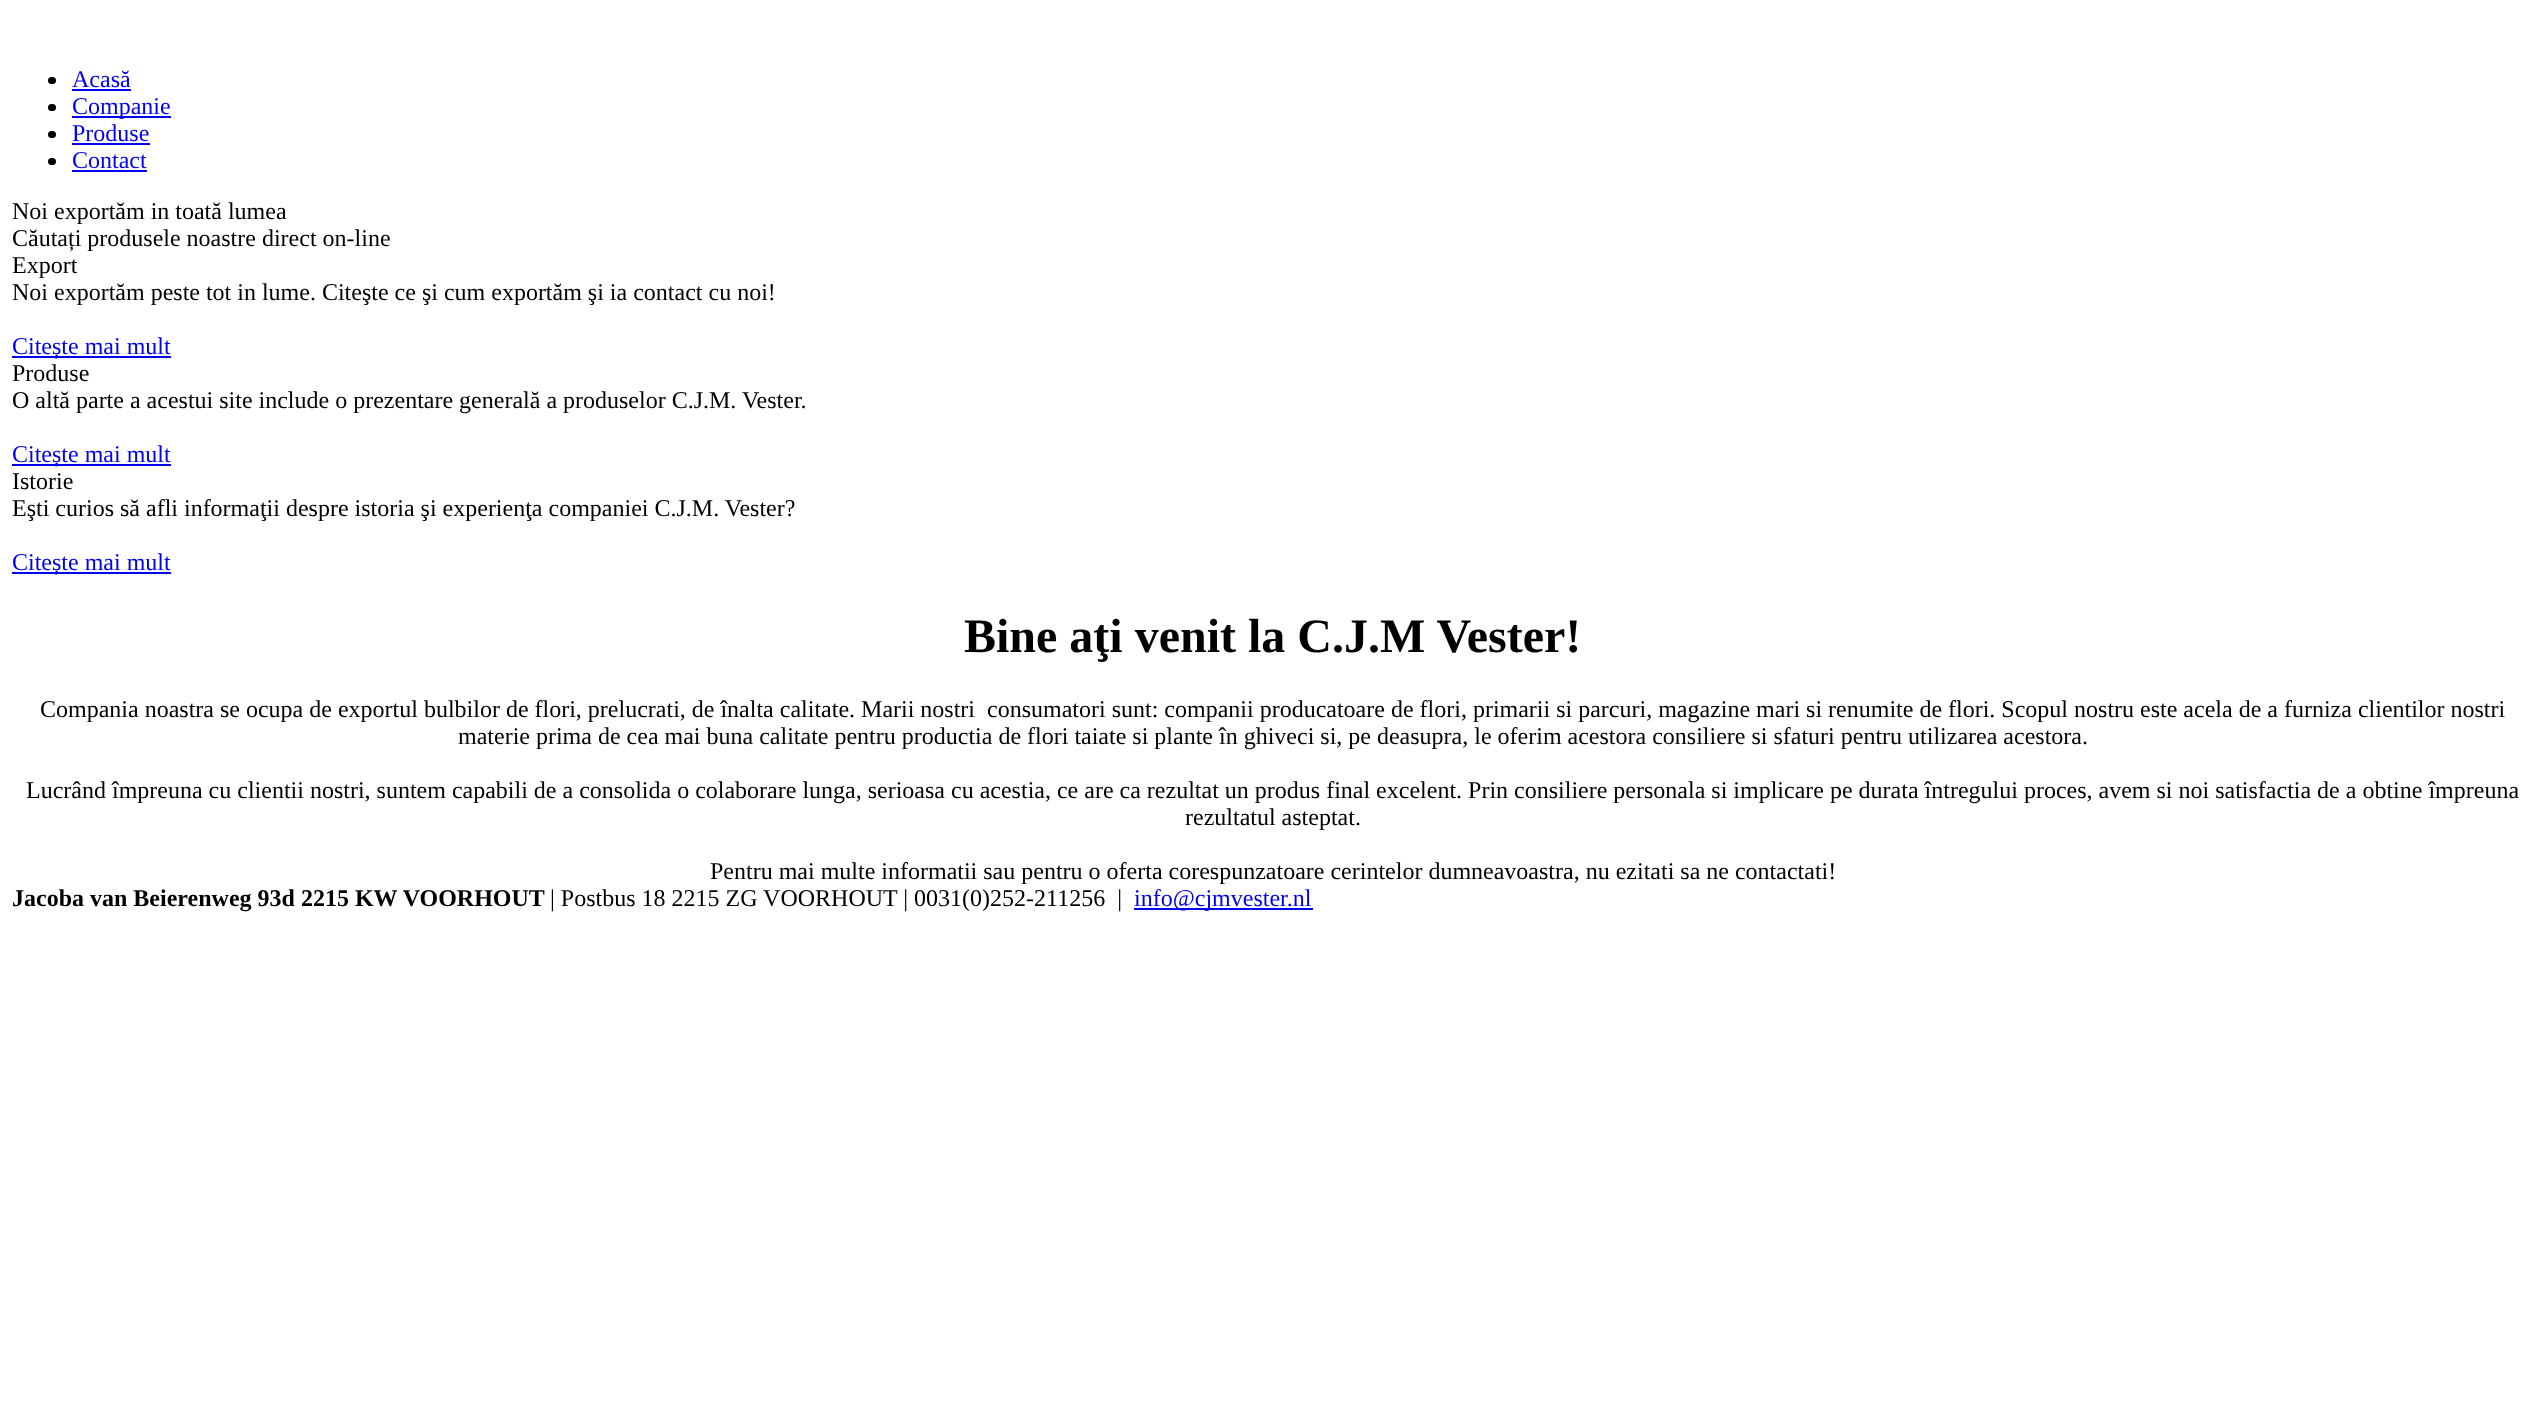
(async () => {
const canvas = document.querySelector("canvas")
canvas.width = 2545
canvas.height = 1402
const c = canvas.getContext("2d")
c.miterLimit = 4
c.fontKerning = "normal"
function T(s,x,y){c.fillText(s,x,y)}
function R(x,y,w,h){c.fillRect(x,y,w,h)}
function Q(x,y,w,h,r){c.beginPath();c.roundRect(x,y,w,h,r);c.fill()}
c.fillStyle="#fff"
R(0,0,2545,1402)
c.fillStyle="#000"
Q(48,77,8,7,3.5)
c.font="24px Liberation Serif"
c.fillStyle="#00e"
T("Acasă",72,87)
R(72,89,59,2)
c.fillStyle="#000"
Q(48,104,8,7,3.5)
c.fillStyle="#00e"
R(72,116,99,2)
T("Companie",72,114)
c.fillStyle="#000"
Q(48,131,8,7,3.5)
c.fillStyle="#00e"
T("Produse",72,141)
R(72,143,78,2)
c.fillStyle="#000"
Q(48,158,8,7,3.5)
c.fillStyle="#00e"
T("Contact",72,168)
R(72,170,75,2)
c.fillStyle="#000"
T("Noi exportăm in toată lumea",12,219)
T("Căutați produsele noastre direct on-line",12,246)
T("Export",12,273)
T("Noi exportăm peste tot in lume. Citeşte ce şi cum exportăm şi ia contact cu noi!",12,300)
c.fillStyle="#00e"
R(12,356,159,2)
T("Citește mai mult",12,354)
c.fillStyle="#000"
T("Produse",12,381)
T("O altă parte a acestui site include o prezentare generală a produselor C.J.M. Vester.",12,408)
c.fillStyle="#00e"
R(12,464,159,2)
T("Citește mai mult",12,462)
c.fillStyle="#000"
T("Istorie",12,489)
T("Eşti curios să afli informaţii despre istoria şi experienţa companiei C.J.M. Vester?",12,516)
c.fillStyle="#00e"
R(12,572,159,2)
T("Citește mai mult",12,570)
c.font="bold 48px Liberation Serif"
c.fillStyle="#000"
T("Bine aţi venit la C.J.M Vester!",964,652)
c.font="24px Liberation Serif"
T("Compania noastra se ocupa de exportul bulbilor de flori, prelucrati, de înalta calitate. Marii nostri  consumatori sunt: companii producatoare de flori, primarii si parcuri, magazine mari si renumite de flori. Scopul nostru este acela de a furniza clientilor nostri",40,717)
T("materie prima de cea mai buna calitate pentru productia de flori taiate si plante în ghiveci si, pe deasupra, le oferim acestora consiliere si sfaturi pentru utilizarea acestora.",458,744)
T("Lucrând împreuna cu clientii nostri, suntem capabili de a consolida o colaborare lunga, serioasa cu acestia, ce are ca rezultat un produs final excelent. Prin consiliere personala si implicare pe durata întregului proces, avem si noi satisfactia de a obtine împreuna",26,798)
T("rezultatul asteptat.",1185,825)
T("Pentru mai multe informatii sau pentru o oferta corespunzatoare cerintelor dumneavoastra, nu ezitati sa ne contactati!",710,879)
c.font="bold 24px Liberation Serif"
T("Jacoba van Beierenweg 93d 2215 KW VOORHOUT",12,906)
c.font="24px Liberation Serif"
T("| Postbus 18 2215 ZG VOORHOUT | 0031(0)252-211256  |",550,906)
c.fillStyle="#00e"
R(1134,908,179,2)
T("info@cjmvester.nl",1134,906)
})()
